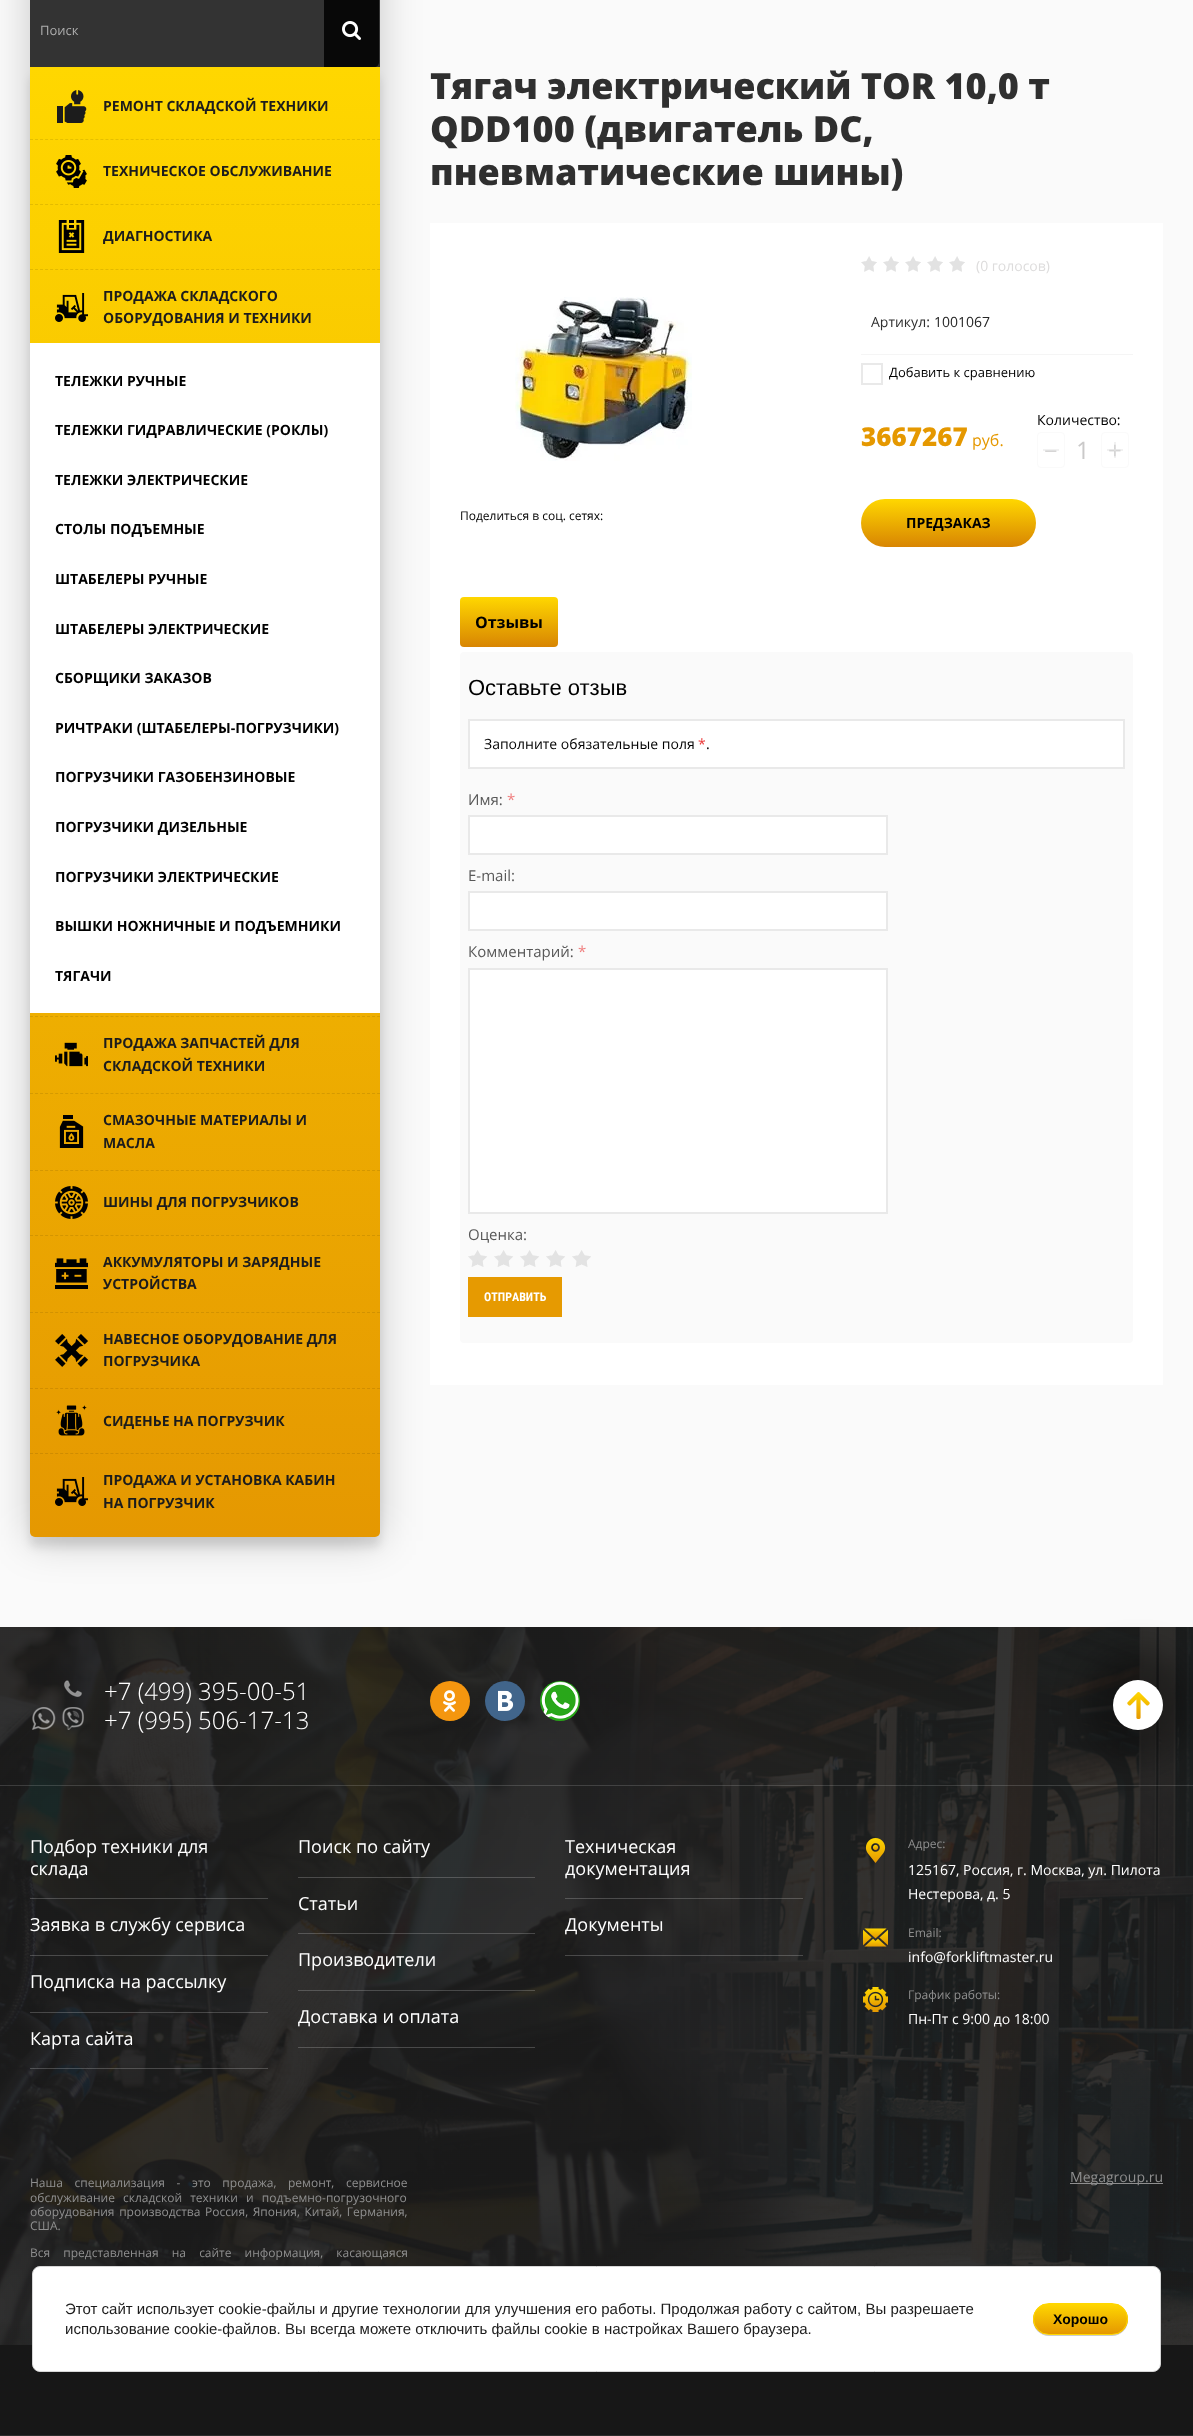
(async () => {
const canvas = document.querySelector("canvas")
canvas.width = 1193
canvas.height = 2436
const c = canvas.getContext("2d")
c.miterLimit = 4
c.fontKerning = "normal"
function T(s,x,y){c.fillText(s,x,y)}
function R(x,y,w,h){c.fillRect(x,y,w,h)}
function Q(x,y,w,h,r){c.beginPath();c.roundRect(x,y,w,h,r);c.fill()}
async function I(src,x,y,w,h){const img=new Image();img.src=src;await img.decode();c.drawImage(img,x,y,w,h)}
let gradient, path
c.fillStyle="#fafafa"
R(0,0,1193,2436)
c.fillStyle="#00000033"
c.filter="blur(20px)"
c.beginPath()
c.rect(30,-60,350,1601)
c.fill()
c.filter="none"
c.fillStyle="#0000001a"
c.filter="blur(5px)"
c.beginPath()
c.roundRect(30,77,350,1470,5)
c.fill()
c.filter="none"
c.fillStyle="#333"
R(30,0,350,67)
c.font="13px Open Sans"
c.fillStyle="#aeaeae"
T("Поиск",40,35)
c.fillStyle="#080808"
path = new Path2D("M324-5h55v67c0 3-2 5-5 5h-50z")
c.fill(path)
await I("1.png",342,21,19,19)
gradient = c.createLinearGradient(205,67,205,1537)
gradient.addColorStop(0,"#ffd700")
gradient.addColorStop(1,"#e59801")
c.fillStyle = gradient
c.beginPath()
c.roundRect(30,67,350,1470,[0,0,5,5])
c.fill()
await I("2.png",57,90,30,33)
c.font="bold 14px Open Sans"
c.fillStyle="#1c1c1c"
T("РЕМОНТ СКЛАДСКОЙ ТЕХНИКИ",103,111)
path = new Path2D("M30 139.5h350")
c.strokeStyle="#e5bf00"
c.setLineDash([3,2.03])
c.stroke(path)
await I("3.png",56,155,31,33)
T("ТЕХНИЧЕСКОЕ ОБСЛУЖИВАНИЕ",103,176)
path = new Path2D("M30 204.5h350")
c.strokeStyle="#e4bc00"
c.stroke(path)
await I("4.png",58,220,27,33)
T("ДИАГНОСТИКА",103,241)
path = new Path2D("M30 269.5h350")
c.strokeStyle="#e2b900"
c.stroke(path)
await I("5.png",55,293,33,29)
T("ПРОДАЖА СКЛАДСКОГО",103,301)
T("ОБОРУДОВАНИЯ И ТЕХНИКИ",103,323)
c.fillStyle="#fff"
R(30,343,350,670)
c.fillStyle="#000"
T("ТЕЛЕЖКИ РУЧНЫЕ",55,386)
T("ТЕЛЕЖКИ ГИДРАВЛИЧЕСКИЕ (РОКЛЫ)",55,435)
T("ТЕЛЕЖКИ ЭЛЕКТРИЧЕСКИЕ",55,485)
T("СТОЛЫ ПОДЪЕМНЫЕ",55,534)
T("ШТАБЕЛЕРЫ РУЧНЫЕ",55,584)
T("ШТАБЕЛЕРЫ ЭЛЕКТРИЧЕСКИЕ",55,634)
T("СБОРЩИКИ ЗАКАЗОВ",55,683)
T("РИЧТРАКИ (ШТАБЕЛЕРЫ-ПОГРУЗЧИКИ)",55,733)
T("ПОГРУЗЧИКИ ГАЗОБЕНЗИНОВЫЕ",55,782)
T("ПОГРУЗЧИКИ ДИЗЕЛЬНЫЕ",55,832)
T("ПОГРУЗЧИКИ ЭЛЕКТРИЧЕСКИЕ",55,882)
T("ВЫШКИ НОЖНИЧНЫЕ И ПОДЪЕМНИКИ",55,931)
T("ТЯГАЧИ",55,981)
path = new Path2D("M30 1016.5h350")
c.strokeStyle="#d69d01"
c.stroke(path)
await I("6.png",55,1042,33,25)
c.fillStyle="#1c1c1c"
T("ПРОДАЖА ЗАПЧАСТЕЙ ДЛЯ",103,1048)
T("СКЛАДСКОЙ ТЕХНИКИ",103,1071)
path = new Path2D("M30 1093.5h350")
c.strokeStyle="#d59a01"
c.stroke(path)
await I("7.png",59,1115,25,33)
T("CМАЗОЧНЫЕ МАТЕРИАЛЫ И",103,1125)
T("МАСЛА",103,1148)
path = new Path2D("M30 1170.5h350")
c.strokeStyle="#d49701"
c.stroke(path)
await I("8.png",55,1186,33,33)
T("ШИНЫ ДЛЯ ПОГРУЗЧИКОВ",103,1207)
path = new Path2D("M30 1235.5h350")
c.strokeStyle="#d39501"
c.stroke(path)
await I("9.png",55,1258,33,31)
T("АККУМУЛЯТОРЫ И ЗАРЯДНЫЕ",103,1267)
T("УСТРОЙСТВА",103,1289)
path = new Path2D("M30 1312.5h350")
c.strokeStyle="#d29201"
c.stroke(path)
await I("10.png",55,1334,33,33)
T("НАВЕСНОЕ ОБОРУДОВАНИЕ ДЛЯ",103,1344)
T("ПОГРУЗЧИКА",103,1366)
path = new Path2D("M30 1388.5h350")
c.strokeStyle="#d18e01"
c.stroke(path)
await I("11.png",56,1405,31,31)
T("СИДЕНЬЕ НА ПОГРУЗЧИК",103,1426)
path = new Path2D("M30 1453.5h350")
c.strokeStyle="#cf8c01"
c.stroke(path)
await I("12.png",55,1477,33,29)
T("ПРОДАЖА И УСТАНОВКА КАБИН",103,1485)
T("НА ПОГРУЗЧИК",103,1508)
c.font="800 36px Open Sans"
c.fillStyle="#2f2f2f"
T("Тягач электрический TOR 10,0 т",430,99)
T("QDD100 (двигатель DC,",430,142)
T("пневматические шины)",430,185)
c.fillStyle="#fff"
R(430,223,733,1162)
await I("13.png",515,297,177,164)
c.font="12px Open Sans"
c.fillStyle="#000"
T("Поделиться в соц. сетях:",460,520)
await I("14.png",861,256,104,16)
c.font="14px Open Sans"
c.fillStyle="#dddcdc"
T("(0 голосов)",976,271)
c.fillStyle="#2f2f2f"
T("Артикул:",871,327)
c.fillStyle="#262626"
T("1001067",934,327)
c.fillStyle="#f5f5f5"
R(861,354,272,1)
c.strokeStyle="#e9e9e9"
c.lineWidth=2
c.setLineDash([])
c.strokeRect(862,364,20,20)
c.font="13px Open Sans"
c.fillStyle="#000"
T("Добавить к сравнению",889,377)
c.font="800 26px Open Sans"
c.fillStyle="#e59800"
T("3667267",861,446)
c.font="16px Open Sans"
T("руб.",972,446)
c.font="14px Open Sans"
c.fillStyle="#000"
T("Количество:",1037,425)
c.beginPath()
c.roundRect(1037.5,432.5,27,35,3.5)
c.strokeStyle="#fafafa"
c.lineWidth=1
c.stroke()
c.font="24px Liberation Serif"
c.fillStyle="#c1c0c0"
T("−",1044,459)
c.fillStyle="#e5e5e58c"
R(1043,449,16,2)
c.font="24px Open Sans"
c.fillStyle="#cac9c9"
T("1",1076,459)
c.beginPath()
c.roundRect(1101.5,432.5,27,35,3.5)
c.stroke()
c.fillStyle="#c1c0c0"
T("+",1108,459)
c.fillStyle="#e5e5e58c"
R(1107,449,16,2)
R(1114,442,2,16)
gradient = c.createLinearGradient(949,547,949,499)
gradient.addColorStop(0,"#d88503")
gradient.addColorStop(1,"#ffd700")
c.fillStyle = gradient
Q(861,499,175,48,24)
c.font="bold 14px Open Sans"
c.fillStyle="#000"
T("ПРЕДЗАКАЗ",906,528)
gradient = c.createLinearGradient(509,647,509,597)
gradient.addColorStop(0,"#d88503")
gradient.addColorStop(1,"#ffd700")
c.fillStyle = gradient
Q(460,597,98,50,4)
c.font="bold 16px Open Sans"
c.fillStyle="#000"
T("Отзывы",475,628)
c.fillStyle="#fafafa"
Q(460,652,673,691,4)
c.font="22px Liberation Sans"
c.fillStyle="#000"
T("Оставьте отзыв",468,695)
c.fillStyle="#fff"
c.beginPath()
c.rect(469,720,655,48)
c.fill()
c.strokeStyle="#e9e9e9"
c.lineWidth=2
c.stroke()
c.font="14px Open Sans"
c.fillStyle="#000"
T("Заполните обязательные поля",484,749)
c.fillStyle="#eb3c3c"
T("*",698,749)
c.fillStyle="#000"
T(".",706,749)
c.font="15px Open Sans"
c.fillStyle="#585858"
T("Имя:",468,805)
c.fillStyle="#f07f7f"
T("*",507,805)
c.fillStyle="#fff"
c.beginPath()
c.rect(469,816,418,38)
c.fill()
c.stroke()
c.fillStyle="#585858"
T("E-mail:",468,881)
c.fillStyle="#fff"
c.beginPath()
c.rect(469,892,418,38)
c.fill()
c.stroke()
c.fillStyle="#585858"
T("Комментарий:",468,957)
c.fillStyle="#f07f7f"
T("*",578,957)
c.fillStyle="#fff"
c.beginPath()
c.rect(469,969,418,244)
c.fill()
c.stroke()
c.fillStyle="#585858"
T("Оценка:",468,1240)
await I("15.png",468,1250,123,17)
c.fillStyle="#e69a01"
R(468,1277,94,40)
c.font="bold 12px Roboto Condensed"
c.fillStyle="#fff"
T("ОТПРАВИТЬ",484,1301)
await I("16.png",0,1627,1193,718)
c.fillStyle="#171717"
R(0,2345,1193,90)
c.fillStyle="#2d2d2d"
R(0,2435,1193,1)
await I("17.png",32,1680,52,50)
c.font="300 24px Open Sans"
c.fillStyle="#fff"
T("+7 (499) 395-00-51",104,1700)
T("+7 (995) 506-17-13",104,1729)
await I("18.png",430,1681,40,40)
await I("19.png",485,1681,40,40)
await I("20.png",540,1681,40,40)
c.fillStyle="#ffffff26"
R(0,1785,1193,1)
c.fillStyle="#0000004d"
c.filter="blur(15px)"
c.beginPath()
c.roundRect(1083,1650,110,110,55)
c.fill()
c.filter="none"
c.fillStyle="#fff"
c.beginPath()
c.arc(1138,1705,25,0,7)
c.fill()
await I("21.png",1127,1692,23,27)
c.fillStyle="#ffffff33"
R(30,1898,238,1)
c.font="18px Open Sans"
c.fillStyle="#fff"
T("Подбор техники для",30,1853)
T("склада",30,1875)
c.fillStyle="#ffffff33"
R(30,1955,238,1)
c.fillStyle="#fff"
T("Заявка в службу сервиса",30,1931)
c.fillStyle="#ffffff33"
R(30,2012,238,1)
c.fillStyle="#fff"
T("Подписка на рассылку",30,1988)
c.fillStyle="#ffffff33"
R(30,2068,238,1)
c.fillStyle="#fff"
T("Карта сайта",30,2045)
c.fillStyle="#ffffff33"
R(298,1877,237,1)
c.fillStyle="#fff"
T("Поиск по сайту",298,1853)
c.fillStyle="#ffffff33"
R(298,1933,237,1)
c.fillStyle="#fff"
T("Статьи",298,1910)
c.fillStyle="#ffffff33"
R(298,1990,237,1)
c.fillStyle="#fff"
T("Производители",298,1966)
c.fillStyle="#ffffff33"
R(298,2047,237,1)
c.fillStyle="#fff"
T("Доставка и оплата",298,2023)
c.fillStyle="#ffffff33"
R(565,1898,238,1)
c.fillStyle="#fff"
T("Техническая",565,1853)
T("документация",565,1875)
c.fillStyle="#ffffff33"
R(565,1955,238,1)
c.fillStyle="#fff"
T("Документы",565,1931)
await I("22.png",865,1838,21,25)
c.font="12px Open Sans"
c.fillStyle="#8f8f8f"
T("Адрес:",908,1848)
c.font="14px Open Sans"
c.fillStyle="#fff"
T("125167, Россия, г. Москва, ул. Пилота",908,1875)
T("Нестерова, д. 5",908,1899)
await I("23.png",863,1928,25,19)
c.font="12px Open Sans"
c.fillStyle="#8f8f8f"
T("Email:",908,1937)
c.font="14px Open Sans"
c.fillStyle="#fff"
T("info@forkliftmaster.ru",908,1962)
await I("24.png",863,1987,25,25)
c.font="12px Open Sans"
c.fillStyle="#8f8f8f"
T("График работы:",908,1999)
c.font="14px Open Sans"
c.fillStyle="#fff"
T("Пн-Пт с 9:00 до 18:00",908,2024)
c.wordSpacing="8.5px"
c.font="12px Open Sans"
c.fillStyle="#8f8f8f"
T("Наша специализация - это продажа, ремонт, сервисное",30,2187)
c.wordSpacing="5px"
T("обслуживание складской техники и подъемно-погрузочного",30,2202)
c.wordSpacing="1.5px"
T("оборудования производства Россия, Япония, Китай, Германия,",30,2216)
c.wordSpacing="0px"
T("США.",30,2230)
c.wordSpacing="10px"
T("Вся представленная на сайте информация, касающаяся",30,2257)
R(1070,2183,93,1)
c.wordSpacing="0px"
c.font="14px Open Sans"
T("Megagroup.ru",1070,2182)
c.fillStyle="#fff"
c.beginPath()
c.roundRect(32.5,2266.5,1128,105,7.5)
c.fill()
c.strokeStyle="#d6d6d6"
c.lineWidth=1
c.stroke()
c.font="15px Liberation Sans"
c.fillStyle="#1c1c1c"
T("Этот сайт использует cookie-файлы и другие технологии для улучшения его работы. Продолжая работу с сайтом, Вы разрешаете",65,2314)
T("использование cookie-файлов. Вы всегда можете отключить файлы cookie в настройках Вашего браузера.",65,2334)
c.fillStyle="#00000033"
c.filter="blur(0.5px)"
c.beginPath()
c.roundRect(1033,2304,95,32,16)
c.fill()
c.filter="none"
c.save()
c.beginPath()
c.roundRect(1033,2303,95,32,16)
c.clip()
gradient = c.createLinearGradient(1081,2304,1081,2334)
gradient.addColorStop(0,"#ffd700")
gradient.addColorStop(1,"#e59801")
c.fillStyle = gradient
R(1033,2304,95,30)
c.restore()
c.beginPath()
c.roundRect(1033.5,2303.5,94,31,15.5)
c.strokeStyle="#ffd700"
c.stroke()
c.font="bold 14px Liberation Sans"
c.fillStyle="#000"
T("Хорошо",1053,2324)
})()
